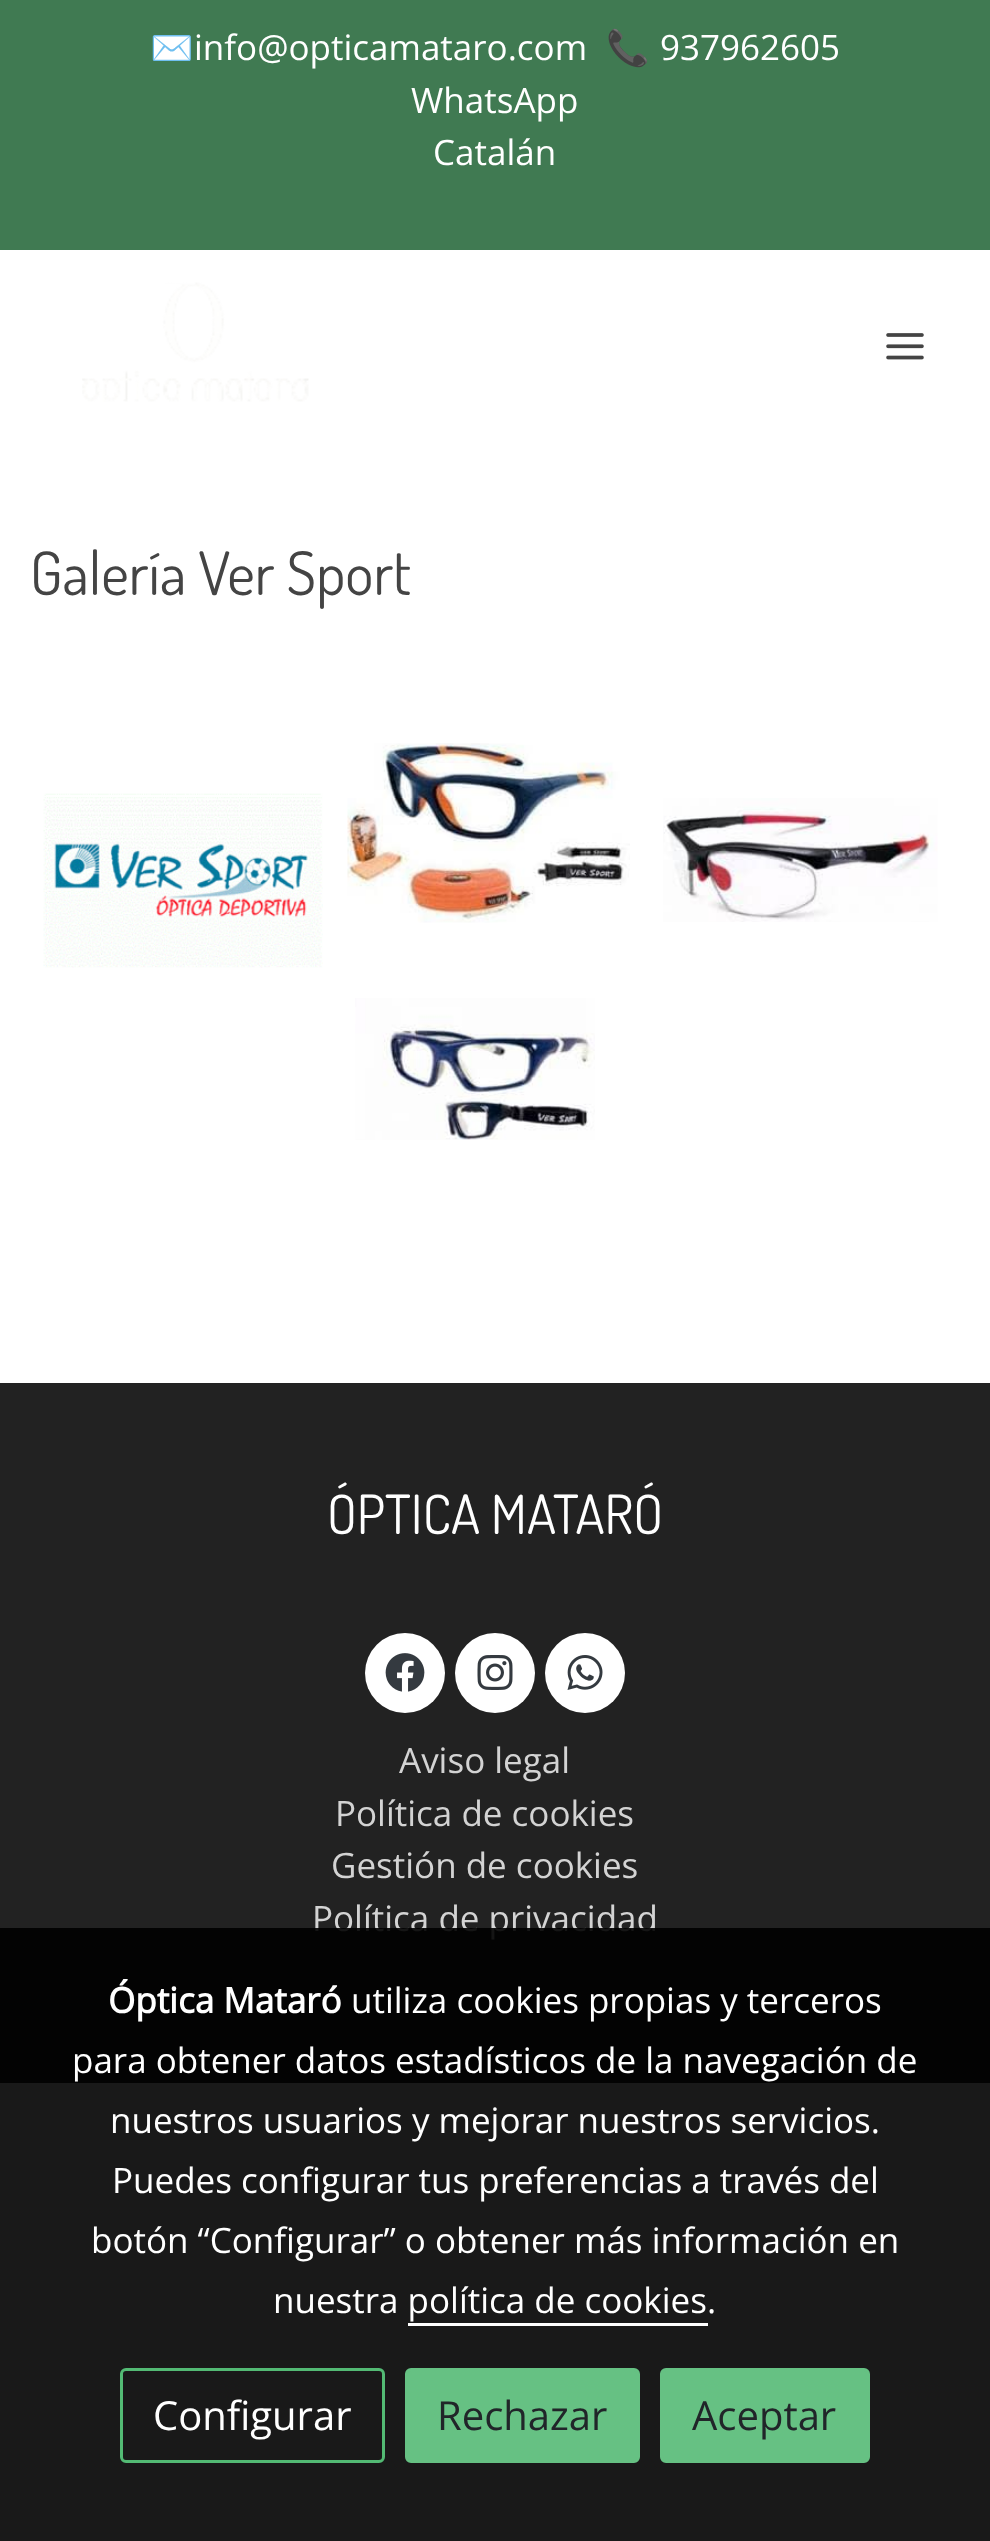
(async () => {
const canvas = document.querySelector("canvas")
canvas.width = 990
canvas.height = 2541
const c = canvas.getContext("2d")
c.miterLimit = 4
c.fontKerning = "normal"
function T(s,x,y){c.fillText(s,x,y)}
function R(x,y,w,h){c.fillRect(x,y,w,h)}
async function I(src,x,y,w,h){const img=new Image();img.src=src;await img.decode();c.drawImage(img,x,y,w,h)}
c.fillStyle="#fff"
R(0,0,990,2541)
c.fillStyle="#407a52"
R(0,0,990,250)
c.font="35px Noto Color Emoji"
c.fillStyle="#fff"
T("✉️",150,60)
c.font="35px Open Sans"
T("info@opticamataro.com",194,60)
c.font="35px Noto Color Emoji"
T("📞",606,60)
c.font="35px Open Sans"
T("937962605",660,60)
T("WhatsApp",411,113)
T("Catalán",433,165)
await I("1.png",82,282,227,120)
await I("2.png",886,333,38,27)
c.font="60px Dosis"
c.fillStyle="#444"
T("Galería Ver Sport",30,595)
await I("3.png",43,793,280,175)
await I("4.png",347,743,283,180)
await I("5.png",663,798,275,124)
await I("6.png",355,998,240,142)
c.fillStyle="#222"
R(0,1383,990,700)
c.font="54px Dosis"
c.fillStyle="#fff"
T("ÓPTICA MATARÓ",327,1534)
c.beginPath()
c.arc(405,1673,40,0,7)
c.fill()
await I("7.png",385,1653,40,39)
c.beginPath()
c.arc(495,1673,40,0,7)
c.fill()
await I("8.png",477,1655,36,35)
c.beginPath()
c.arc(585,1673,40,0,7)
c.fill()
await I("9.png",567,1655,36,35)
c.font="35px Open Sans"
c.fillStyle="#d3d3d3"
T("Aviso legal",399,1773)
T("Política de cookies",335,1826)
T("Gestión de cookies",331,1878)
T("Política de privacidad",312,1931)
c.fillStyle="#000000e6"
R(0,1928,990,613)
c.font="bold 35px Open Sans"
c.fillStyle="#fff"
T("Óptica Mataró",108,2013)
c.font="35px Open Sans"
T("utiliza cookies propias y terceros",351,2013)
T("para obtener datos estadísticos de la navegación de",72,2073)
T("nuestros usuarios y mejorar nuestros servicios.",110,2133)
T("Puedes configurar tus preferencias a través del",112,2193)
T("botón “Configurar” o obtener más información en",91,2253)
T("nuestra política de cookies.",273,2313)
R(408,2323,300,3)
c.beginPath()
c.roundRect(121.5,2369.5,262,92,4.5)
c.strokeStyle="#53ba74"
c.lineWidth=3
c.stroke()
c.font="40px Open Sans"
T("Configurar",153,2430)
c.fillStyle="#66c183"
c.beginPath()
c.roundRect(406.5,2369.5,232,92,4.5)
c.fill()
c.strokeStyle="#66c183"
c.stroke()
c.fillStyle="#212529"
T("Rechazar",437,2430)
c.fillStyle="#66c183"
c.beginPath()
c.roundRect(661.5,2369.5,207,92,4.5)
c.fill()
c.stroke()
c.fillStyle="#212529"
T("Aceptar",692,2430)
})()
